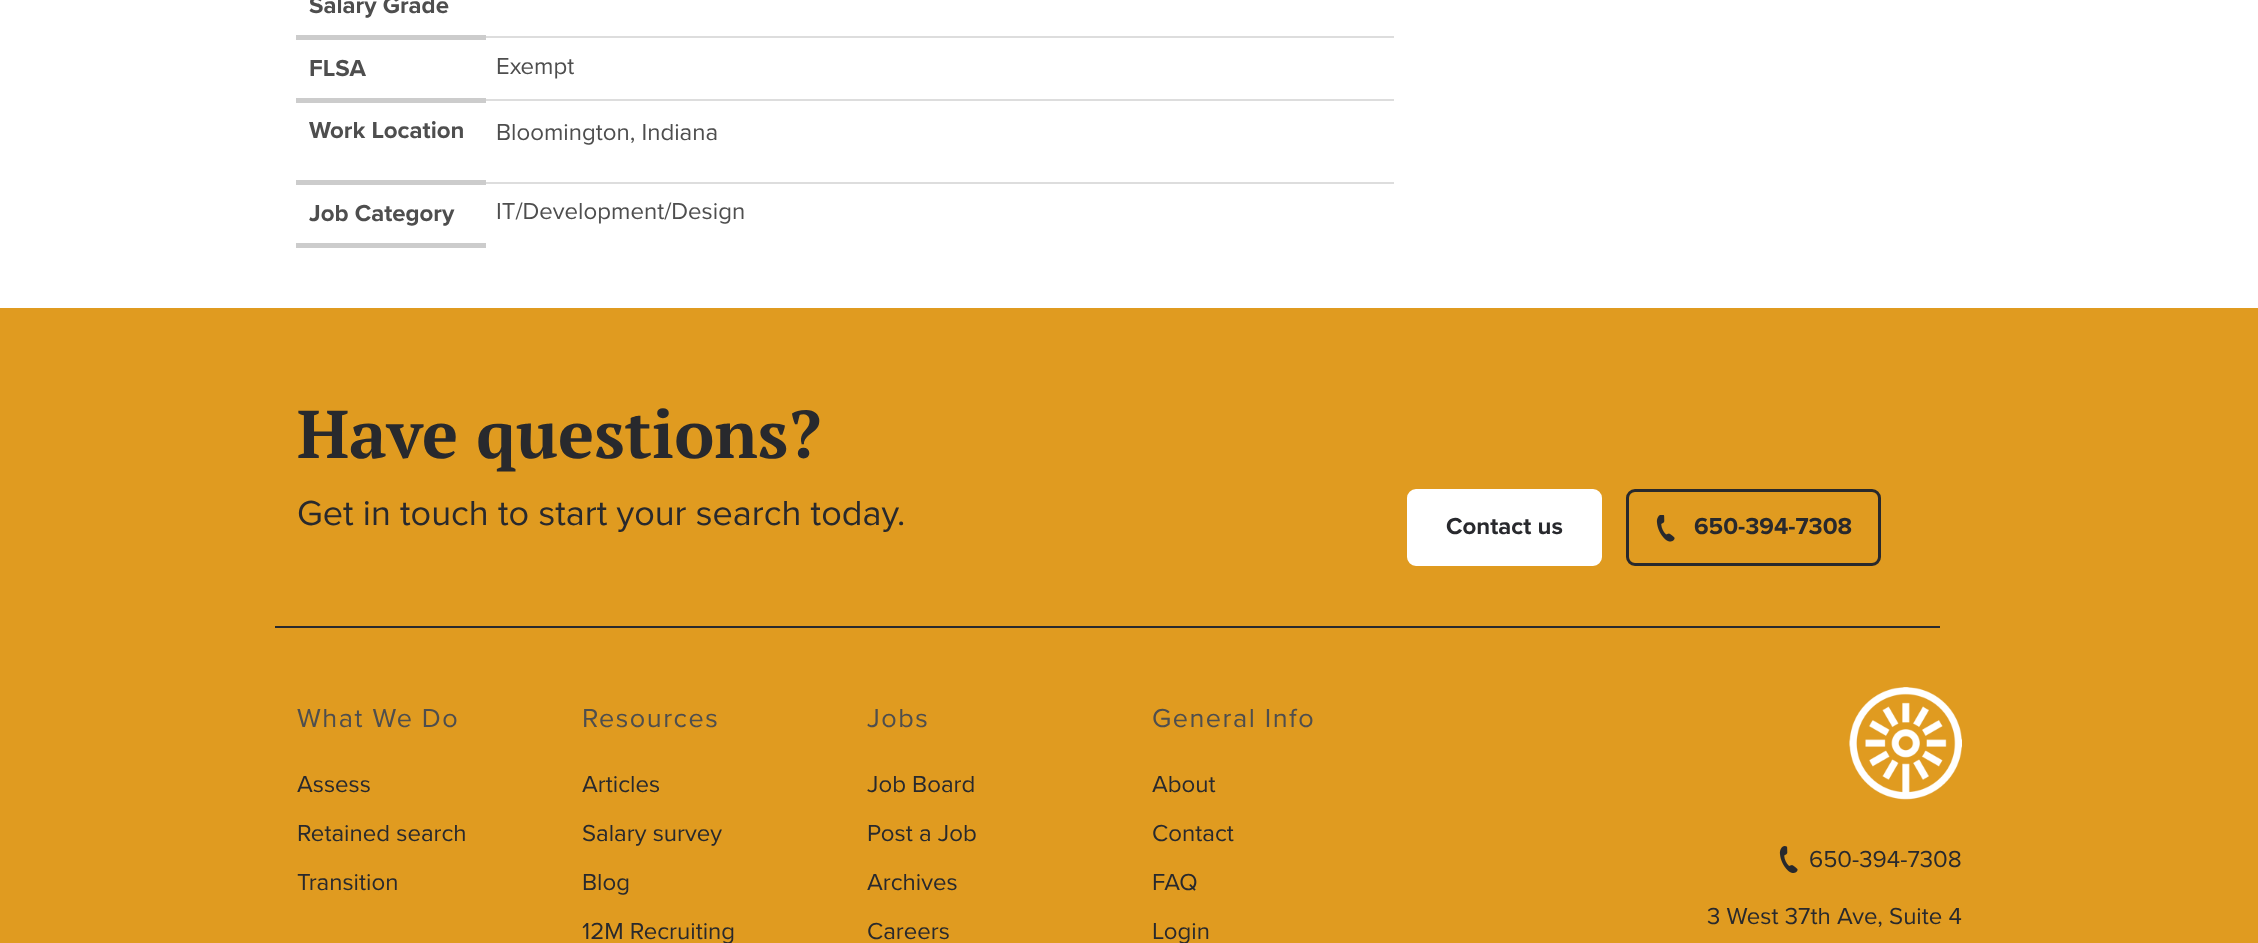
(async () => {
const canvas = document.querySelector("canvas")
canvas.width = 2258
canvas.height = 943
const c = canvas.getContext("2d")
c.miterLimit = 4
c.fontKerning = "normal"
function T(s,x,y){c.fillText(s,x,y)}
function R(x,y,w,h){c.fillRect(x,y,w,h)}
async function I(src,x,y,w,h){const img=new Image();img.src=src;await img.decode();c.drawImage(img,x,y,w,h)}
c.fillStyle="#fff"
R(0,0,2258,943)
c.fillStyle="#ddd"
R(483,36,911,2)
c.fillStyle="#ccc"
R(296,35,190,5)
c.font="bold 24px Proxima Nova"
c.fillStyle="#4e4e4e"
T("Salary Grade",309,13)
c.fillStyle="#ddd"
R(483,99,911,2)
c.fillStyle="#ccc"
R(296,98,190,5)
c.fillStyle="#4e4e4e"
T("FLSA",309,76)
c.font="24px Proxima Nova"
T("Exempt",496,74)
c.fillStyle="#ddd"
R(483,182,911,2)
c.fillStyle="#ccc"
R(296,180,190,5)
c.font="bold 24px Proxima Nova"
c.fillStyle="#4e4e4e"
T("Work Location",309,138)
c.font="24px Proxima Nova"
T("Bloomington, Indiana",496,140)
c.fillStyle="#ccc"
R(296,243,190,5)
c.font="bold 24px Proxima Nova"
c.fillStyle="#4e4e4e"
T("Job Category",309,221)
c.font="24px Proxima Nova"
T("IT/Development/Design",496,219)
c.fillStyle="#e09b20"
R(0,308,2258,635)
c.fillStyle="#28292d"
R(275,626,1665,2)
c.font="bold 67.5px PT Serif"
T("Have questions?",297,458)
c.font="36px Proxima Nova"
T("Get in touch to start your search today.",297,525)
c.fillStyle="#fff"
c.beginPath()
c.roundRect(1408.5,490.5,192,74,7.5)
c.fill()
c.strokeStyle="#fff"
c.lineWidth=3
c.stroke()
c.font="bold 24px Proxima Nova"
c.fillStyle="#28292d"
T("Contact us",1446,534)
await I("1.png",1656,515,19,27)
c.beginPath()
c.roundRect(1627.5,490.5,252,74,7.5)
c.strokeStyle="#28292d"
c.stroke()
T("650-394-7308",1694,534)
c.letterSpacing="1.5px"
c.font="27px Proxima Nova"
c.fillStyle="#4e4e4e"
T("What We Do",297,727)
c.letterSpacing="0px"
c.font="24px Proxima Nova"
c.fillStyle="#28292d"
T("Assess",297,792)
T("Retained search",297,841)
T("Transition",297,890)
c.letterSpacing="1.5px"
c.font="27px Proxima Nova"
c.fillStyle="#4e4e4e"
T("Resources",582,727)
c.letterSpacing="0px"
c.font="24px Proxima Nova"
c.fillStyle="#28292d"
T("Articles",582,792)
T("Salary survey",582,841)
T("Blog",582,890)
T("12M Recruiting",582,939)
c.letterSpacing="1.5px"
c.font="27px Proxima Nova"
c.fillStyle="#4e4e4e"
T("Jobs",867,727)
c.letterSpacing="0px"
c.font="24px Proxima Nova"
c.fillStyle="#28292d"
T("Job Board",867,792)
T("Post a Job",867,841)
T("Archives",867,890)
T("Careers",867,939)
c.letterSpacing="1.5px"
c.font="27px Proxima Nova"
c.fillStyle="#4e4e4e"
T("General Info",1152,727)
c.letterSpacing="0px"
c.font="24px Proxima Nova"
c.fillStyle="#28292d"
T("About",1152,792)
T("Contact",1152,841)
T("FAQ",1152,890)
T("Login",1152,939)
await I("2.png",1849,687,113,113)
await I("3.png",1779,846,19,27)
T("650-394-7308",1809,867)
T("3 West 37th Ave, Suite 4",1707,924)
})()
